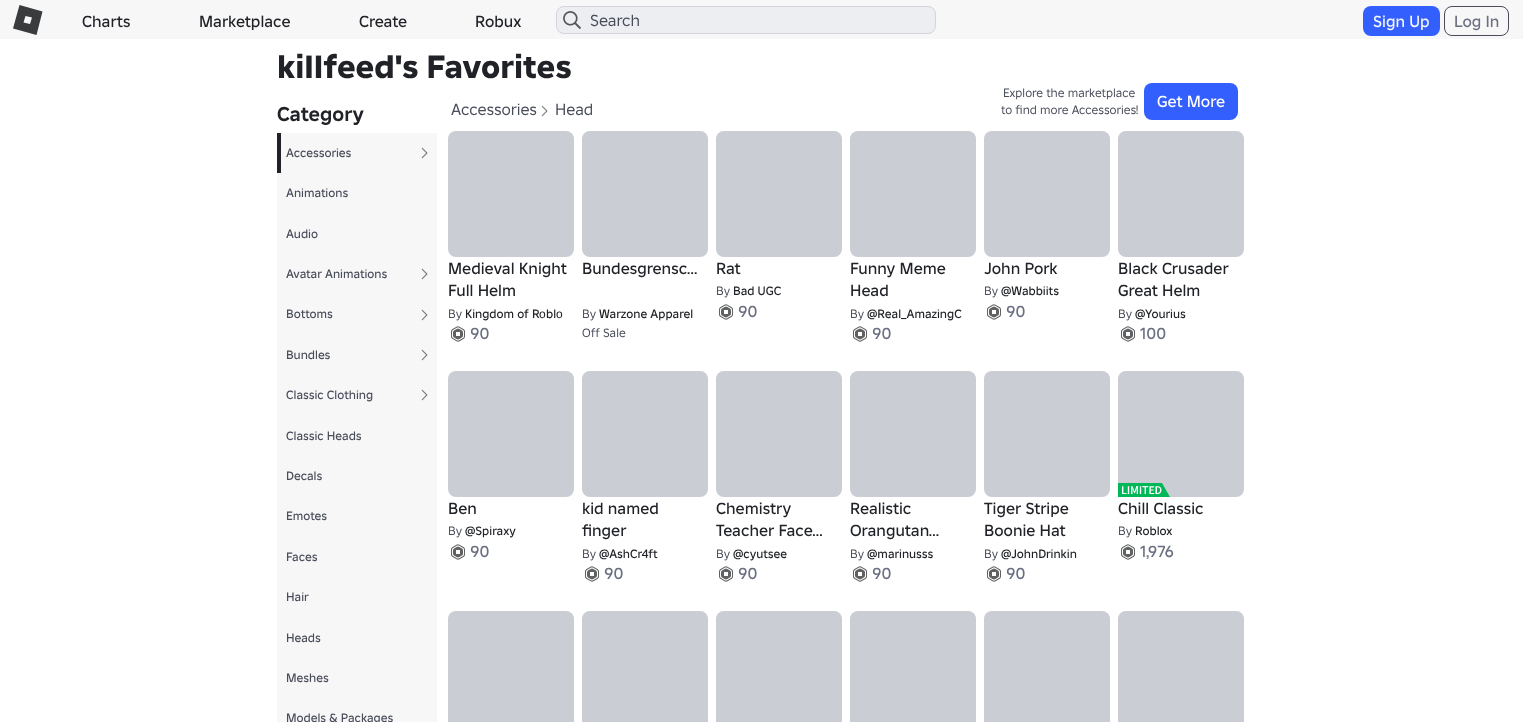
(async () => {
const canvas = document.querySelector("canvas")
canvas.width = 1538
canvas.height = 722
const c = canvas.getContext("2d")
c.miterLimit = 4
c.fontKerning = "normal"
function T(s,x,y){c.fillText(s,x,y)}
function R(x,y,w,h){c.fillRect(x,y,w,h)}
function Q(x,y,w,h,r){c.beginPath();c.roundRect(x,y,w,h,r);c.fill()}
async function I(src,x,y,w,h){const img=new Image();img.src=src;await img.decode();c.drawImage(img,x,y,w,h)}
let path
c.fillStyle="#fff"
R(0,0,1538,722)
c.fillStyle="#f7f7f8"
R(0,0,1523,39)
c.fillStyle="#393b3d"
path = new Path2D("M19.5 5l-6.5 23.5l23.5 6.5l6-23.5zm10.5 19l-6.5-1.5l2-6.5l6.5 1.5z")
c.fill(path)
c.font="500 16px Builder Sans"
c.fillStyle="#202227"
T("Charts",82,27)
T("Marketplace",199,27)
T("Create",359,27)
T("Robux",475,27)
c.fillStyle="#fff"
Q(556,6,380,28,8)
c.fillStyle="#1b254b14"
Q(556,6,380,28,8)
c.beginPath()
c.roundRect(556.5,6.5,379,27,7.5)
c.strokeStyle="#1b254b1f"
c.stroke()
await I("1.png",563,11,18,18)
c.font="16px Builder Sans"
c.fillStyle="#494d5a"
T("Search",590,26)
c.fillStyle="#335fff"
Q(1363,6,77,30,8)
c.font="500 16px Builder Sans"
c.fillStyle="#f7f7f8"
T("Sign Up",1373,27)
c.beginPath()
c.roundRect(1444.5,6.5,64,29,7.5)
c.strokeStyle="#494d5a"
c.stroke()
c.fillStyle="#6a6f81"
T("Log In",1454,27)
c.font="800 32px Builder Sans"
c.fillStyle="#202227"
T("kiIIfeed's Favorites",277,78)
c.font="bold 20px Builder Sans"
T("Category",277,121)
c.fillStyle="#f7f7f8"
R(277,133,160,589)
c.fillStyle="#202227"
R(277,133,4,40)
c.font="500 12px Builder Sans"
c.fillStyle="#494d5a"
T("Accessories",286,157)
await I("2.png",421,147,7,12)
T("Animations",286,197)
T("Audio",286,238)
T("Avatar Animations",286,278)
await I("2.png",421,268,7,12)
T("Bottoms",286,318)
await I("2.png",421,309,7,12)
T("Bundles",286,359)
await I("2.png",421,349,7,12)
T("Classic Clothing",286,399)
await I("2.png",421,389,7,12)
T("Classic Heads",286,440)
T("Decals",286,480)
T("Emotes",286,520)
T("Faces",286,561)
T("Hair",286,601)
T("Heads",286,642)
T("Meshes",286,682)
T("Models & Packages",286,722)
c.font="16px Builder Sans"
T("Accessories",451,115)
await I("3.png",541,105,7,12)
T("Head",555,115)
c.font="12px Builder Sans"
T("Explore the marketplace",1003,97)
T("to find more Accessories!",1001,114)
c.fillStyle="#335fff"
Q(1144,83,94,37,8)
c.font="500 16px Builder Sans"
c.fillStyle="#fff"
T("Get More",1157,107)
c.fillStyle="#e4e5e9"
Q(448,131,126,126,8)
c.fillStyle="#1b254b1f"
Q(448,131,126,126,8)
c.fillStyle="#202227"
T("Medieval Knight",448,274)
T("Full Helm",448,296)
c.font="12px Builder Sans"
c.fillStyle="#494d5a"
T("By",448,318)
c.font="500 12px Builder Sans"
c.fillStyle="#202227"
T("Kingdom of R",465,318)
c.font="12px Liberation Sans"
T("о",539,318)
c.font="500 12px Builder Sans"
T("bl",546,318)
c.font="12px Liberation Sans"
T("о",556,318)
await I("4.png",451,326,14,16)
c.font="500 16px Builder Sans"
c.fillStyle="#6a6f81"
T("90",470,339)
c.fillStyle="#e4e5e9"
Q(582,131,126,126,8)
c.fillStyle="#1b254b1f"
Q(582,131,126,126,8)
c.fillStyle="#202227"
T("Bundesgrensc…",582,274)
c.font="12px Builder Sans"
c.fillStyle="#494d5a"
T("By",582,318)
c.font="500 12px Builder Sans"
c.fillStyle="#202227"
T("Warzone Apparel",599,318)
c.font="12px Builder Sans"
c.fillStyle="#494d5a"
T("Off Sale",582,337)
c.fillStyle="#e4e5e9"
Q(716,131,126,126,8)
c.fillStyle="#1b254b1f"
Q(716,131,126,126,8)
c.font="500 16px Builder Sans"
c.fillStyle="#202227"
T("Rat",716,274)
c.font="12px Builder Sans"
c.fillStyle="#494d5a"
T("By",716,295)
c.font="500 12px Builder Sans"
c.fillStyle="#202227"
T("Bad UGC",733,295)
await I("4.png",719,304,14,16)
c.font="500 16px Builder Sans"
c.fillStyle="#6a6f81"
T("90",738,317)
c.fillStyle="#e4e5e9"
Q(850,131,126,126,8)
c.fillStyle="#1b254b1f"
Q(850,131,126,126,8)
c.fillStyle="#202227"
T("Funny Meme",850,274)
T("Head",850,296)
c.font="12px Builder Sans"
c.fillStyle="#494d5a"
T("By",850,318)
c.font="500 12px Builder Sans"
c.fillStyle="#202227"
T("@Real_AmazingC",867,318)
await I("4.png",853,326,14,16)
c.font="500 16px Builder Sans"
c.fillStyle="#6a6f81"
T("90",872,339)
c.fillStyle="#e4e5e9"
Q(984,131,126,126,8)
c.fillStyle="#1b254b1f"
Q(984,131,126,126,8)
c.fillStyle="#202227"
T("John Pork",984,274)
c.font="12px Builder Sans"
c.fillStyle="#494d5a"
T("By",984,295)
c.font="500 12px Builder Sans"
c.fillStyle="#202227"
T("@Wabbiits",1001,295)
await I("4.png",987,304,14,16)
c.font="500 16px Builder Sans"
c.fillStyle="#6a6f81"
T("90",1006,317)
c.fillStyle="#e4e5e9"
Q(1118,131,126,126,8)
c.fillStyle="#1b254b1f"
Q(1118,131,126,126,8)
c.fillStyle="#202227"
T("Black Crusader",1118,274)
T("Great Helm",1118,296)
c.font="12px Builder Sans"
c.fillStyle="#494d5a"
T("By",1118,318)
c.font="500 12px Builder Sans"
c.fillStyle="#202227"
T("@Yourius",1135,318)
await I("4.png",1121,326,14,16)
c.font="500 16px Builder Sans"
c.fillStyle="#6a6f81"
T("100",1140,339)
c.fillStyle="#e4e5e9"
Q(448,371,126,126,8)
c.fillStyle="#1b254b1f"
Q(448,371,126,126,8)
c.fillStyle="#202227"
T("Ben",448,514)
c.font="12px Builder Sans"
c.fillStyle="#494d5a"
T("By",448,535)
c.font="500 12px Builder Sans"
c.fillStyle="#202227"
T("@Spiraxy",465,535)
await I("4.png",451,544,14,16)
c.font="500 16px Builder Sans"
c.fillStyle="#6a6f81"
T("90",470,557)
c.fillStyle="#e4e5e9"
Q(582,371,126,126,8)
c.fillStyle="#1b254b1f"
Q(582,371,126,126,8)
c.fillStyle="#202227"
T("kid named",582,514)
T("finger",582,536)
c.font="12px Builder Sans"
c.fillStyle="#494d5a"
T("By",582,558)
c.font="500 12px Builder Sans"
c.fillStyle="#202227"
T("@AshCr4ft",599,558)
await I("4.png",585,566,14,16)
c.font="500 16px Builder Sans"
c.fillStyle="#6a6f81"
T("90",604,579)
c.fillStyle="#e4e5e9"
Q(716,371,126,126,8)
c.fillStyle="#1b254b1f"
Q(716,371,126,126,8)
c.fillStyle="#202227"
T("Chemistry",716,514)
c.save()
c.beginPath()
c.rect(716,497,126,45)
c.clip()
T("Teacher Face…",716,536)
c.restore()
c.font="12px Builder Sans"
c.fillStyle="#494d5a"
T("By",716,558)
c.font="500 12px Builder Sans"
c.fillStyle="#202227"
T("@cyutsee",733,558)
await I("4.png",719,566,14,16)
c.font="500 16px Builder Sans"
c.fillStyle="#6a6f81"
T("90",738,579)
c.fillStyle="#e4e5e9"
Q(850,371,126,126,8)
c.fillStyle="#1b254b1f"
Q(850,371,126,126,8)
c.fillStyle="#202227"
T("Realistic",850,514)
T("Orangutan…",850,536)
c.font="12px Builder Sans"
c.fillStyle="#494d5a"
T("By",850,558)
c.font="500 12px Builder Sans"
c.fillStyle="#202227"
T("@marinusss",867,558)
await I("4.png",853,566,14,16)
c.font="500 16px Builder Sans"
c.fillStyle="#6a6f81"
T("90",872,579)
c.fillStyle="#e4e5e9"
Q(984,371,126,126,8)
c.fillStyle="#1b254b1f"
Q(984,371,126,126,8)
c.save()
c.beginPath()
c.rect(984,497,126,45)
c.clip()
c.fillStyle="#202227"
T("Tiger Stripe",984,514)
c.restore()
c.fillStyle="#202227"
T("Boonie Hat",984,536)
c.font="12px Builder Sans"
c.fillStyle="#494d5a"
T("By",984,558)
c.font="500 12px Builder Sans"
c.fillStyle="#202227"
T("@JohnDrinkin",1001,558)
await I("4.png",987,566,14,16)
c.font="500 16px Builder Sans"
c.fillStyle="#6a6f81"
T("90",1006,579)
c.fillStyle="#e4e5e9"
Q(1118,371,126,126,8)
c.fillStyle="#1b254b1f"
Q(1118,371,126,126,8)
await I("5.png",1118,483,52,14)
c.fillStyle="#202227"
T("Chill Classic",1118,514)
c.font="12px Builder Sans"
c.fillStyle="#494d5a"
T("By",1118,535)
c.font="500 12px Builder Sans"
c.fillStyle="#202227"
T("Roblox",1135,535)
await I("4.png",1121,544,14,16)
c.font="500 16px Builder Sans"
c.fillStyle="#6a6f81"
T("1,976",1140,557)
c.fillStyle="#e4e5e9"
Q(448,611,126,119,8)
c.fillStyle="#1b254b1f"
Q(448,611,126,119,8)
c.fillStyle="#e4e5e9"
Q(582,611,126,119,8)
c.fillStyle="#1b254b1f"
Q(582,611,126,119,8)
c.fillStyle="#e4e5e9"
Q(716,611,126,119,8)
c.fillStyle="#1b254b1f"
Q(716,611,126,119,8)
c.fillStyle="#e4e5e9"
Q(850,611,126,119,8)
c.fillStyle="#1b254b1f"
Q(850,611,126,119,8)
c.fillStyle="#e4e5e9"
Q(984,611,126,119,8)
c.fillStyle="#1b254b1f"
Q(984,611,126,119,8)
c.fillStyle="#e4e5e9"
Q(1118,611,126,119,8)
c.fillStyle="#1b254b1f"
Q(1118,611,126,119,8)
})()
